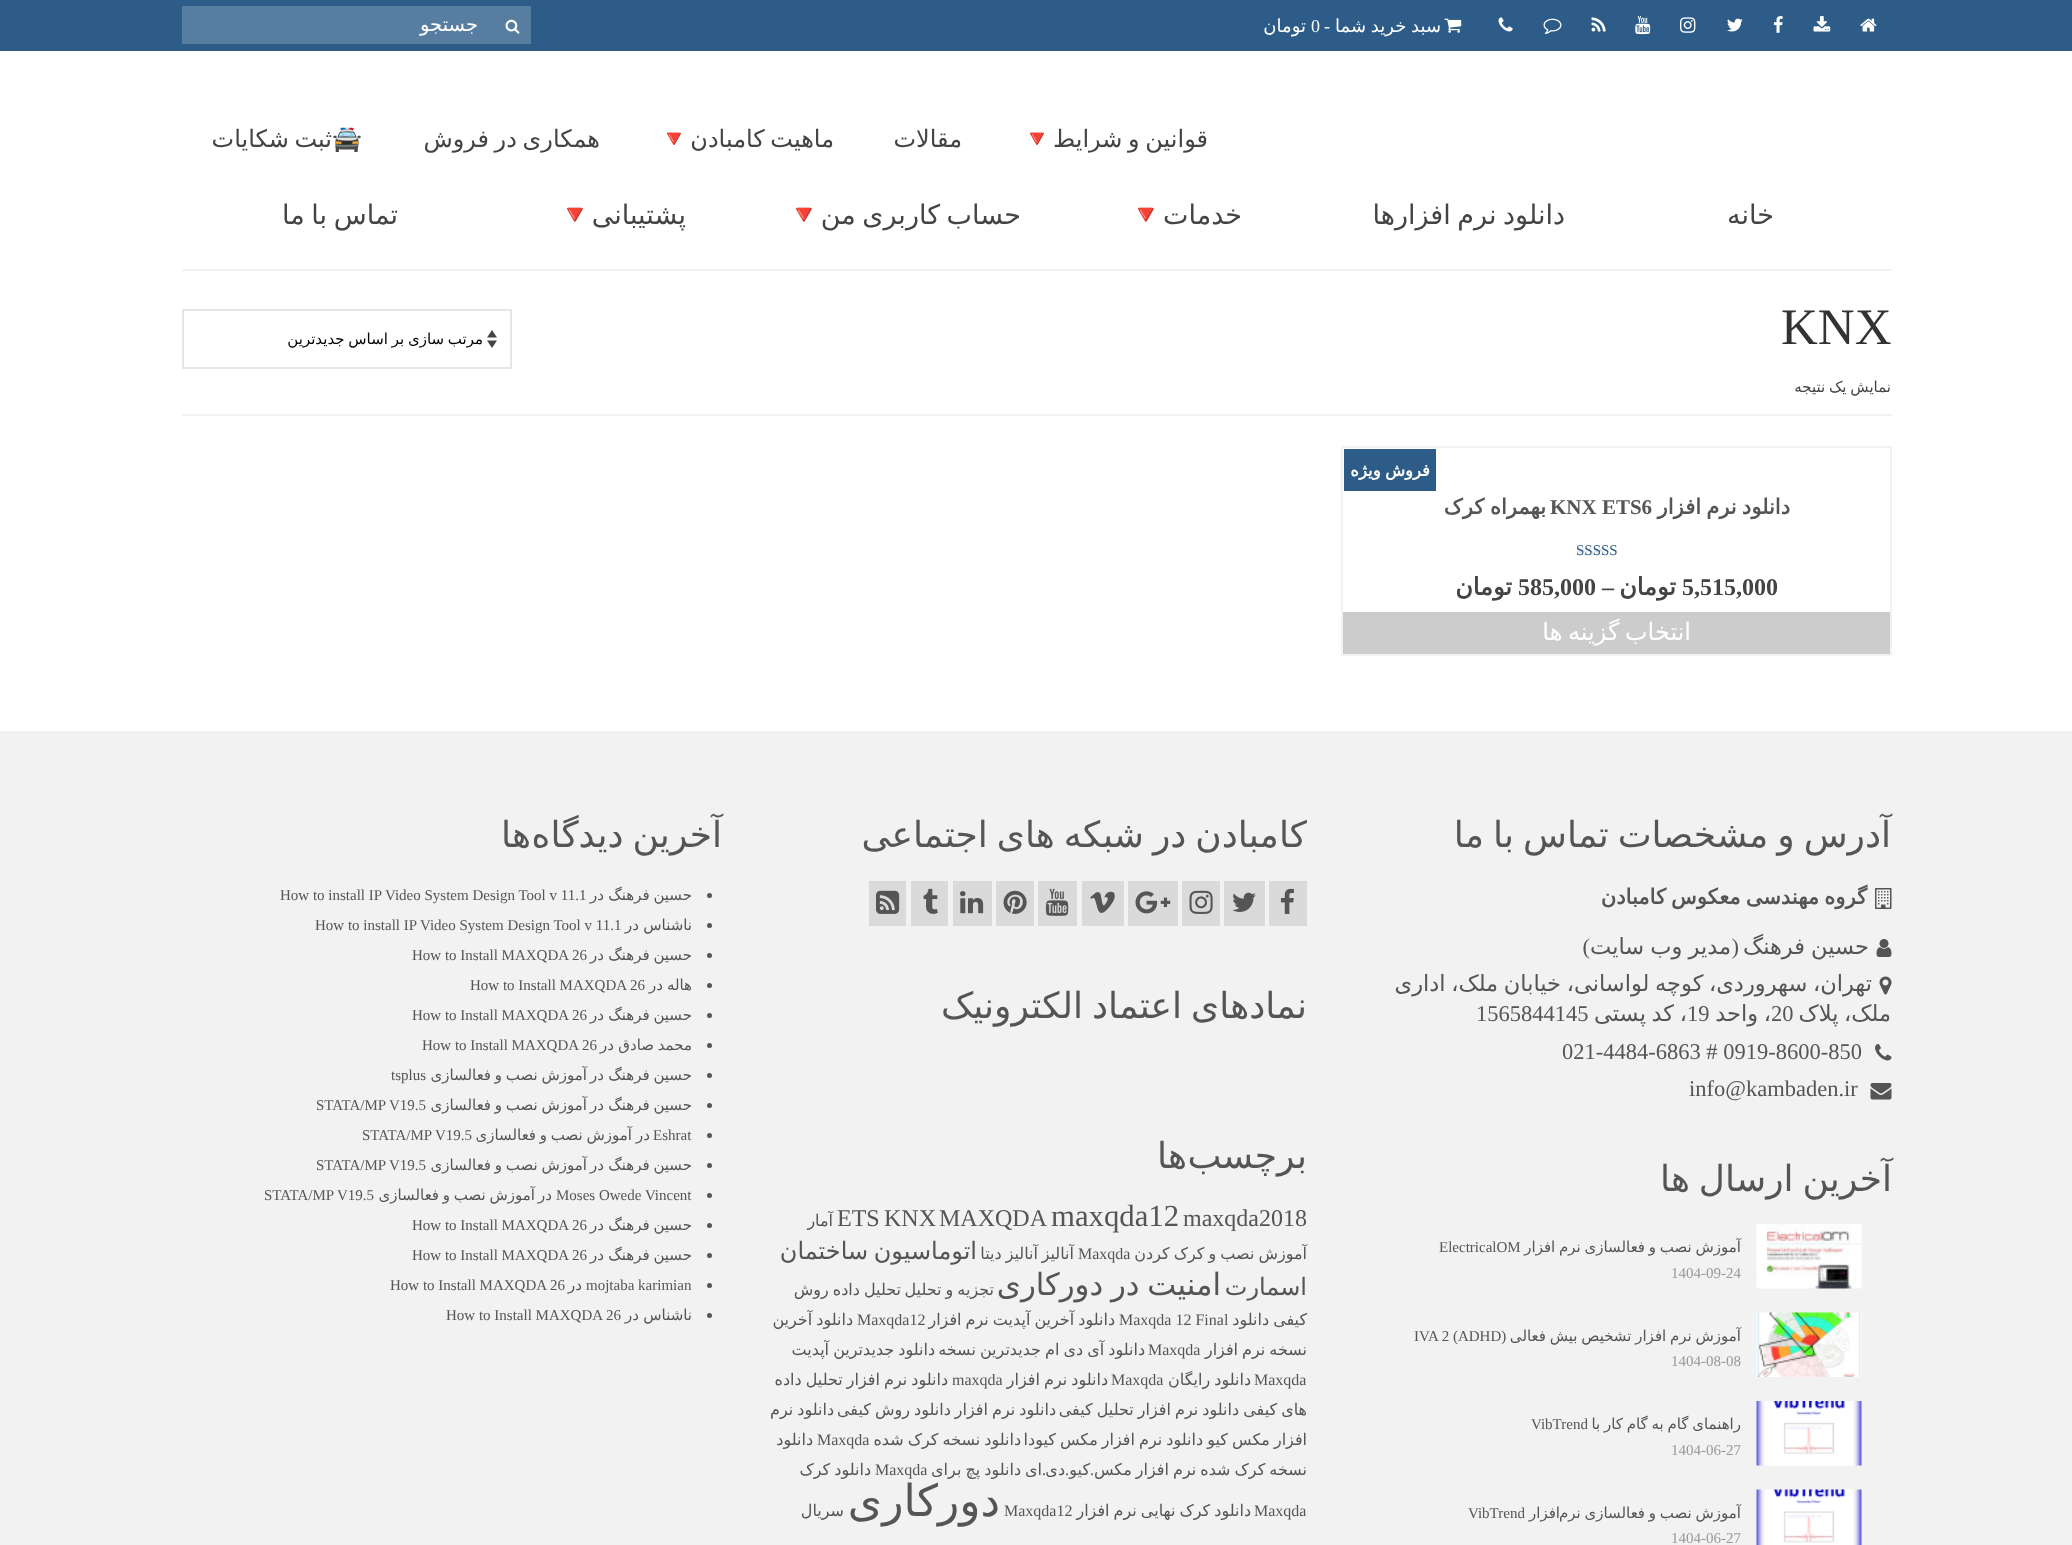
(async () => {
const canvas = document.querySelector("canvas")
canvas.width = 2072
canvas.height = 1545
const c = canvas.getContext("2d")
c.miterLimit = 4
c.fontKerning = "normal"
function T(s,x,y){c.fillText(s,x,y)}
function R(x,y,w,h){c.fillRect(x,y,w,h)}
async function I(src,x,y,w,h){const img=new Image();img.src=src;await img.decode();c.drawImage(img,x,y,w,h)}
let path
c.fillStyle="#fff"
R(0,0,2072,1545)
c.fillStyle="#2d5c88"
R(0,0,2072,51)
await I("1.png",1860,18,17,14)
await I("2.png",1813,16,18,16)
await I("3.png",1773,16,10,17)
await I("4.png",1727,18,16,14)
await I("5.png",1680,17,16,16)
await I("6.png",1635,16,16,19)
await I("7.png",1591,17,15,15)
await I("8.png",1543,18,19,17)
await I("9.png",1498,17,15,15)
await I("10.png",1444,18,18,15)
c.wordSpacing="-1px"
c.direction="rtl"
c.font="18px DejaVu Sans"
c.fillStyle="#fff"
T("سبد خرید شما",1441,32)
c.wordSpacing="0px"
c.direction="ltr"
c.font="18px Liberation Serif"
T("-",1324,32)
T("0",1311,32)
c.direction="rtl"
c.font="18px DejaVu Sans"
T("تومان",1306,32)
c.fillStyle="#577da0"
R(182,6,349,38)
await I("11.png",505,19,15,15)
c.font="19.5px DejaVu Sans"
c.fillStyle="#fff"
T("جستجو",478,31)
c.wordSpacing="-2px"
c.font="24px DejaVu Sans"
c.fillStyle="#444"
T("قوانین و شرایط",1208,147)
c.wordSpacing="0px"
c.font="24px Noto Color Emoji"
T("🔻",1052,147)
c.font="24px DejaVu Sans"
T("مقالات",962,147)
c.wordSpacing="-2px"
T("ماهیت کامبادن",834,147)
c.wordSpacing="0px"
c.font="24px Noto Color Emoji"
T("🔻",689,147)
c.wordSpacing="-2px"
c.font="24px DejaVu Sans"
T("همکاری در فروش",600,147)
T("ثبت شکایات",332,147)
c.wordSpacing="0px"
c.font="24px Noto Color Emoji"
T("🚔",362,147)
c.font="27px DejaVu Sans"
T("خانه",1774,224)
c.wordSpacing="-2px"
T("دانلود نرم افزارها",1565,224)
c.wordSpacing="0px"
T("خدمات",1242,224)
c.font="27px Noto Color Emoji"
T("🔻",1163,224)
c.wordSpacing="-2px"
c.font="27px DejaVu Sans"
T("حساب کاربری من",1021,224)
c.wordSpacing="0px"
c.font="27px Noto Color Emoji"
T("🔻",821,224)
c.font="27px DejaVu Sans"
T("پشتیبانی",686,224)
c.font="27px Noto Color Emoji"
T("🔻",592,224)
c.wordSpacing="-2px"
c.font="27px DejaVu Sans"
T("تماس با ما",398,224)
c.fillStyle="#f2f2f2"
R(182,269,1710,2)
R(182,414,1710,2)
c.wordSpacing="0px"
c.direction="ltr"
c.font="51px Liberation Serif"
c.fillStyle="#333"
T("KNX",1781,344)
c.fillStyle="#444"
path = new Path2D("M487 337.5l5-7.5l5 7.5zm10 3l-5 7.5l-5-7.5z")
c.fill(path)
c.strokeStyle="#e6e6e6"
c.lineWidth=2
c.strokeRect(183,310,328,58)
c.save()
c.beginPath()
c.rect(195,330,288,18)
c.clip()
c.wordSpacing="-1px"
c.direction="rtl"
c.font="15px DejaVu Sans"
c.fillStyle="#000"
T("مرتب سازی بر اساس جدیدترین",483,344)
c.restore()
c.wordSpacing="-1px"
c.direction="rtl"
c.font="15px DejaVu Sans"
T("نمایش یک نتیجه",1891,392)
c.strokeStyle="#f2f2f2"
c.strokeRect(1342,447,549,208)
c.fillStyle="#2d5c88"
R(1344,449,92,42)
c.font="bold 16.5px DejaVu Sans"
c.fillStyle="#fff"
T("فروش ویژه",1430,476)
c.wordSpacing="-1.5px"
c.font="bold 21px DejaVu Sans"
c.fillStyle="#555"
T("دانلود نرم افزار",1790,514)
c.wordSpacing="0px"
c.direction="ltr"
c.font="bold 21px Liberation Serif"
T("KNX ETS6",1550,514)
c.wordSpacing="-1px"
c.direction="rtl"
c.font="bold 21px DejaVu Sans"
T("بهمراه کرک",1546,514)
c.save()
c.beginPath()
c.rect(1577,543,81,15)
c.clip()
c.wordSpacing="0px"
c.direction="ltr"
c.font="15px Liberation Serif"
c.fillStyle="#dfdbdf"
T("sssss",1576,555)
c.restore()
c.wordSpacing="0px"
c.direction="ltr"
c.font="15px Liberation Serif"
c.fillStyle="#2d5c88"
T("SSSSS",1576,555)
c.font="bold 24px Liberation Serif"
c.fillStyle="#444"
T("5,515,000",1682,595)
c.direction="rtl"
c.font="bold 24px DejaVu Sans"
T("تومان",1676,595)
c.direction="ltr"
c.font="bold 24px Liberation Serif"
T("–",1602,595)
T("585,000",1518,595)
c.direction="rtl"
c.font="bold 24px DejaVu Sans"
T("تومان",1512,595)
c.fillStyle="#ccc"
R(1343,612,547,42)
c.wordSpacing="-2px"
c.font="24px DejaVu Sans"
c.fillStyle="#fff"
T("انتخاب گزینه ها",1691,640)
c.fillStyle="#f2f2f2"
R(0,731,2072,814)
c.wordSpacing="-2.5px"
c.font="36px DejaVu Sans"
c.fillStyle="#555"
T("آدرس و مشخصات تماس با ما",1891,847)
await I("12.png",1875,888,17,21)
c.wordSpacing="-1.5px"
c.font="bold 21px DejaVu Sans"
T("گروه مهندسی معکوس کامبادن",1867,904)
await I("13.png",1876,939,16,18)
c.wordSpacing="-1px"
c.font="22.5px DejaVu Sans"
T("حسین فرهنگ",1869,954)
c.wordSpacing="0px"
c.font="22.5px Liberation Serif"
T("(",1739,954)
c.wordSpacing="-1px"
c.font="22.5px DejaVu Sans"
T("مدیر وب سایت",1731,954)
c.wordSpacing="0px"
c.font="22.5px Liberation Serif"
T(")",1590,954)
await I("14.png",1879,976,13,19)
c.wordSpacing="-1.5px"
c.font="22.5px DejaVu Sans"
T("تهران، سهروردی، کوچه لواسانی، خیابان ملک، اداری",1872,991)
T("ملک، پلاک",1891,1021)
c.wordSpacing="0px"
c.direction="ltr"
c.font="22.5px Liberation Serif"
T("20",1771,1021)
c.wordSpacing="-1.5px"
c.direction="rtl"
c.font="22.5px DejaVu Sans"
T("، واحد",1771,1021)
c.wordSpacing="0px"
c.direction="ltr"
c.font="22.5px Liberation Serif"
T("19",1687,1021)
c.wordSpacing="-1.5px"
c.direction="rtl"
c.font="22.5px DejaVu Sans"
T("، کد پستی",1687,1021)
c.wordSpacing="0px"
c.direction="ltr"
c.font="22.5px Liberation Serif"
T("1565844145",1476,1021)
await I("15.png",1875,1044,17,17)
T("021-4484-6863 # 0919-8600-850",1562,1059)
await I("16.png",1870,1083,22,17)
T("info@kambaden.ir",1689,1096)
c.wordSpacing="-2.5px"
c.direction="rtl"
c.font="36px DejaVu Sans"
T("آخرین ارسال ها",1892,1191)
await I("17.png",1756,1224,106,65)
c.wordSpacing="-1px"
c.font="15px DejaVu Sans"
T("آموزش نصب و فعالسازی نرم افزار",1741,1252)
c.wordSpacing="0px"
c.direction="ltr"
c.font="15px Liberation Serif"
T("ElectricalOM",1439,1252)
c.fillStyle="#999"
T("1404-09-24",1671,1278)
await I("18.png",1756,1312,106,65)
c.wordSpacing="-1px"
c.direction="rtl"
c.font="15px DejaVu Sans"
c.fillStyle="#555"
T("آموزش نرم افزار تشخیص بیش فعالی",1741,1341)
c.wordSpacing="0px"
c.direction="ltr"
c.font="15px Liberation Serif"
T("IVA 2 (ADHD)",1414,1341)
c.fillStyle="#999"
T("1404-08-08",1671,1366)
await I("19.png",1756,1401,106,65)
c.wordSpacing="-1px"
c.direction="rtl"
c.font="15px DejaVu Sans"
c.fillStyle="#555"
T("راهنمای گام به گام کار با",1741,1429)
c.wordSpacing="0px"
c.direction="ltr"
c.font="15px Liberation Serif"
T("VibTrend",1531,1429)
c.fillStyle="#999"
T("1404-06-27",1671,1455)
await I("20.png",1756,1489,106,56)
c.wordSpacing="-1px"
c.direction="rtl"
c.font="15px DejaVu Sans"
c.fillStyle="#555"
T("آموزش نصب و فعالسازی نرم",1741,1518)
c.wordSpacing="0px"
T("افزار",1560,1518)
c.direction="ltr"
c.font="15px Liberation Serif"
T("VibTrend",1468,1518)
c.fillStyle="#999"
T("1404-06-27",1671,1543)
c.wordSpacing="-2.5px"
c.direction="rtl"
c.font="36px DejaVu Sans"
c.fillStyle="#555"
T("کامبادن در شبکه های اجتماعی",1307,847)
c.fillStyle="#dadada"
R(1269,881,38,45)
await I("21.png",1280,888,14,26)
R(1224,881,41,45)
await I("22.png",1232,892,24,20)
R(1182,881,38,45)
await I("23.png",1189,890,24,24)
R(1128,881,50,45)
await I("24.png",1135,891,36,23)
R(1082,881,42,45)
await I("25.png",1090,891,25,22)
R(1038,881,39,45)
await I("26.png",1045,888,24,28)
R(996,881,38,45)
await I("27.png",1003,890,24,24)
R(953,881,39,45)
await I("28.png",960,891,24,23)
R(911,881,37,45)
await I("29.png",923,888,15,26)
R(869,881,37,45)
await I("30.png",876,890,24,24)
c.fillStyle="#555"
T("نمادهای اعتماد الکترونیک",1307,1018)
c.wordSpacing="0px"
T("برچسب",1307,1168)
T("ها",1187,1168)
c.direction="ltr"
c.font="24px Liberation Serif"
T("maxqda2018",1183,1226)
c.font="30.75px Liberation Serif"
T("maxqda12",1051,1226)
c.font="24px Liberation Serif"
T("MAXQDA",939,1226)
T("KNX",884,1226)
T("ETS",837,1226)
c.direction="rtl"
c.font="16px DejaVu Sans"
T("آمار",833,1226)
c.wordSpacing="-1px"
T("آموزش نصب و کرک کردن",1307,1259)
c.wordSpacing="0px"
c.direction="ltr"
c.font="16px Liberation Serif"
T("Maxqda",1078,1259)
c.direction="rtl"
c.font="16px DejaVu Sans"
T("آنالیز",1074,1259)
c.wordSpacing="-1px"
T("آنالیز دیتا",1038,1259)
c.wordSpacing="-2px"
c.font="24px DejaVu Sans"
T("اتوماسیون ساختمان",977,1259)
c.wordSpacing="0px"
T("اسمارت",1307,1295)
c.wordSpacing="-2px"
c.font="30.75px DejaVu Sans"
T("امنیت در دورکاری",1221,1295)
c.wordSpacing="-1px"
c.font="16px DejaVu Sans"
T("تجزیه و تحلیل",994,1295)
T("تحلیل داده روش",901,1295)
c.wordSpacing="0px"
T("کیفی",1307,1325)
T("دانلود",1269,1325)
c.direction="ltr"
c.font="16px Liberation Serif"
T("Maxqda 12 Final",1119,1325)
c.wordSpacing="-1px"
c.direction="rtl"
c.font="16px DejaVu Sans"
T("دانلود آخرین آپدیت نرم افزار",1115,1325)
c.wordSpacing="0px"
c.direction="ltr"
c.font="16px Liberation Serif"
T("Maxqda12",857,1325)
c.wordSpacing="-1px"
c.direction="rtl"
c.font="16px DejaVu Sans"
T("دانلود آخرین",853,1325)
T("نسخه نرم افزار",1307,1355)
c.wordSpacing="0px"
c.direction="ltr"
c.font="16px Liberation Serif"
T("Maxqda",1148,1355)
c.wordSpacing="-1px"
c.direction="rtl"
c.font="16px DejaVu Sans"
T("دانلود آی دی ام جدیدترین نسخه",1145,1355)
T("دانلود جدیدترین آپدیت",935,1355)
c.wordSpacing="0px"
c.direction="ltr"
c.font="16px Liberation Serif"
T("Maxqda",1254,1385)
c.wordSpacing="-1px"
c.direction="rtl"
c.font="16px DejaVu Sans"
T("دانلود رایگان",1251,1385)
c.wordSpacing="0px"
c.direction="ltr"
c.font="16px Liberation Serif"
T("Maxqda",1111,1385)
c.wordSpacing="-1px"
c.direction="rtl"
c.font="16px DejaVu Sans"
T("دانلود نرم افزار",1108,1385)
c.wordSpacing="0px"
c.direction="ltr"
c.font="16px Liberation Serif"
T("maxqda",952,1385)
c.wordSpacing="-1px"
c.direction="rtl"
c.font="16px DejaVu Sans"
T("دانلود نرم افزار تحلیل داده",948,1385)
T("های کیفی",1307,1415)
T("دانلود نرم افزار تحلیل کیفی",1239,1415)
T("دانلود نرم افزار دانلود روش کیفی",1056,1415)
T("دانلود نرم",834,1415)
T("افزار مکس کیو",1307,1445)
T("دانلود نرم افزار مکس کیودا",1203,1445)
T("دانلود نسخه کرک شده",1021,1445)
c.wordSpacing="0px"
c.direction="ltr"
c.font="16px Liberation Serif"
T("Maxqda",817,1445)
c.direction="rtl"
c.font="16px DejaVu Sans"
T("دانلود",813,1445)
c.wordSpacing="-1px"
T("نسخه کرک شده نرم افزار مکس",1307,1475)
c.wordSpacing="0px"
c.font="16px Liberation Serif"
T(".",1094,1475)
T(".",1069,1475)
c.font="16px DejaVu Sans"
T("کیو",1090,1475)
T("دی",1065,1475)
c.font="16px Liberation Serif"
T(".",1046,1475)
c.font="16px DejaVu Sans"
T("ای",1042,1475)
c.wordSpacing="-1px"
T("دانلود پچ برای",1021,1475)
c.wordSpacing="0px"
c.direction="ltr"
c.font="16px Liberation Serif"
T("Maxqda",875,1475)
c.wordSpacing="-1px"
c.direction="rtl"
c.font="16px DejaVu Sans"
T("دانلود کرک",871,1475)
c.wordSpacing="0px"
c.direction="ltr"
c.font="16px Liberation Serif"
T("Maxqda",1254,1516)
c.wordSpacing="-1px"
c.direction="rtl"
c.font="16px DejaVu Sans"
T("دانلود کرک نهایی نرم افزار",1251,1516)
c.wordSpacing="0px"
c.direction="ltr"
c.font="16px Liberation Serif"
T("Maxqda12",1004,1516)
c.direction="rtl"
c.font="44px DejaVu Sans"
T("دورکاری",1000,1516)
c.font="16px DejaVu Sans"
T("سریال",844,1516)
c.wordSpacing="-2.5px"
c.font="36px DejaVu Sans"
T("آخرین دیدگاه",722,847)
c.wordSpacing="0px"
T("ها",531,847)
c.beginPath()
c.arc(709.5,895.5,2.5,0,7)
c.fill()
c.wordSpacing="-1px"
c.font="15px DejaVu Sans"
T("حسین فرهنگ",692,900)
c.wordSpacing="0px"
T("در",604,900)
c.direction="ltr"
c.font="15px Liberation Serif"
T("How to install IP Video System Design Tool v 11.1",280,900)
c.beginPath()
c.arc(709.5,925.5,2.5,0,7)
c.fill()
c.direction="rtl"
c.font="15px DejaVu Sans"
T("ناشناس",692,930)
T("در",639,930)
c.direction="ltr"
c.font="15px Liberation Serif"
T("How to install IP Video System Design Tool v 11.1",315,930)
c.beginPath()
c.arc(709.5,955.5,2.5,0,7)
c.fill()
c.wordSpacing="-1px"
c.direction="rtl"
c.font="15px DejaVu Sans"
T("حسین فرهنگ",692,960)
c.wordSpacing="0px"
T("در",604,960)
c.direction="ltr"
c.font="15px Liberation Serif"
T("How to Install MAXQDA 26",412,960)
c.beginPath()
c.arc(709.5,985.5,2.5,0,7)
c.fill()
c.direction="rtl"
c.font="15px DejaVu Sans"
T("هاله",692,990)
T("در",663,990)
c.direction="ltr"
c.font="15px Liberation Serif"
T("How to Install MAXQDA 26",470,990)
c.beginPath()
c.arc(709.5,1015.5,2.5,0,7)
c.fill()
c.wordSpacing="-1px"
c.direction="rtl"
c.font="15px DejaVu Sans"
T("حسین فرهنگ",692,1020)
c.wordSpacing="0px"
T("در",604,1020)
c.direction="ltr"
c.font="15px Liberation Serif"
T("How to Install MAXQDA 26",412,1020)
c.beginPath()
c.arc(709.5,1045.5,2.5,0,7)
c.fill()
c.wordSpacing="-1px"
c.direction="rtl"
c.font="15px DejaVu Sans"
T("محمد صادق",692,1050)
c.wordSpacing="0px"
T("در",614,1050)
c.direction="ltr"
c.font="15px Liberation Serif"
T("How to Install MAXQDA 26",422,1050)
c.beginPath()
c.arc(709.5,1075.5,2.5,0,7)
c.fill()
c.wordSpacing="-1px"
c.direction="rtl"
c.font="15px DejaVu Sans"
T("حسین فرهنگ",692,1080)
c.wordSpacing="0px"
T("در",604,1080)
c.wordSpacing="-1px"
T("آموزش نصب و فعالسازی",587,1080)
c.wordSpacing="0px"
c.direction="ltr"
c.font="15px Liberation Serif"
T("tsplus",391,1080)
c.beginPath()
c.arc(709.5,1105.5,2.5,0,7)
c.fill()
c.wordSpacing="-1px"
c.direction="rtl"
c.font="15px DejaVu Sans"
T("حسین فرهنگ",692,1110)
c.wordSpacing="0px"
T("در",604,1110)
c.wordSpacing="-1px"
T("آموزش نصب و فعالسازی",587,1110)
c.wordSpacing="0px"
c.direction="ltr"
c.font="15px Liberation Serif"
T("STATA/MP V19.5",316,1110)
c.beginPath()
c.arc(709.5,1135.5,2.5,0,7)
c.fill()
T("Eshrat",653,1140)
c.direction="rtl"
c.font="15px DejaVu Sans"
T("در",650,1140)
c.wordSpacing="-1px"
T("آموزش نصب و فعالسازی",632,1140)
c.wordSpacing="0px"
c.direction="ltr"
c.font="15px Liberation Serif"
T("STATA/MP V19.5",362,1140)
c.beginPath()
c.arc(709.5,1165.5,2.5,0,7)
c.fill()
c.wordSpacing="-1px"
c.direction="rtl"
c.font="15px DejaVu Sans"
T("حسین فرهنگ",692,1170)
c.wordSpacing="0px"
T("در",604,1170)
c.wordSpacing="-1px"
T("آموزش نصب و فعالسازی",587,1170)
c.wordSpacing="0px"
c.direction="ltr"
c.font="15px Liberation Serif"
T("STATA/MP V19.5",316,1170)
c.beginPath()
c.arc(709.5,1195.5,2.5,0,7)
c.fill()
T("Moses Owede Vincent",556,1200)
c.direction="rtl"
c.font="15px DejaVu Sans"
T("در",552,1200)
c.wordSpacing="-1px"
T("آموزش نصب و فعالسازی",535,1200)
c.wordSpacing="0px"
c.direction="ltr"
c.font="15px Liberation Serif"
T("STATA/MP V19.5",264,1200)
c.beginPath()
c.arc(709.5,1225.5,2.5,0,7)
c.fill()
c.wordSpacing="-1px"
c.direction="rtl"
c.font="15px DejaVu Sans"
T("حسین فرهنگ",692,1230)
c.wordSpacing="0px"
T("در",604,1230)
c.direction="ltr"
c.font="15px Liberation Serif"
T("How to Install MAXQDA 26",412,1230)
c.beginPath()
c.arc(709.5,1255.5,2.5,0,7)
c.fill()
c.wordSpacing="-1px"
c.direction="rtl"
c.font="15px DejaVu Sans"
T("حسین فرهنگ",692,1260)
c.wordSpacing="0px"
T("در",604,1260)
c.direction="ltr"
c.font="15px Liberation Serif"
T("How to Install MAXQDA 26",412,1260)
c.beginPath()
c.arc(709.5,1285.5,2.5,0,7)
c.fill()
T("mojtaba karimian",586,1290)
c.direction="rtl"
c.font="15px DejaVu Sans"
T("در",582,1290)
c.direction="ltr"
c.font="15px Liberation Serif"
T("How to Install MAXQDA 26",390,1290)
c.beginPath()
c.arc(709.5,1315.5,2.5,0,7)
c.fill()
c.direction="rtl"
c.font="15px DejaVu Sans"
T("ناشناس",692,1320)
T("در",639,1320)
c.direction="ltr"
c.font="15px Liberation Serif"
T("How to Install MAXQDA 26",446,1320)
})()
